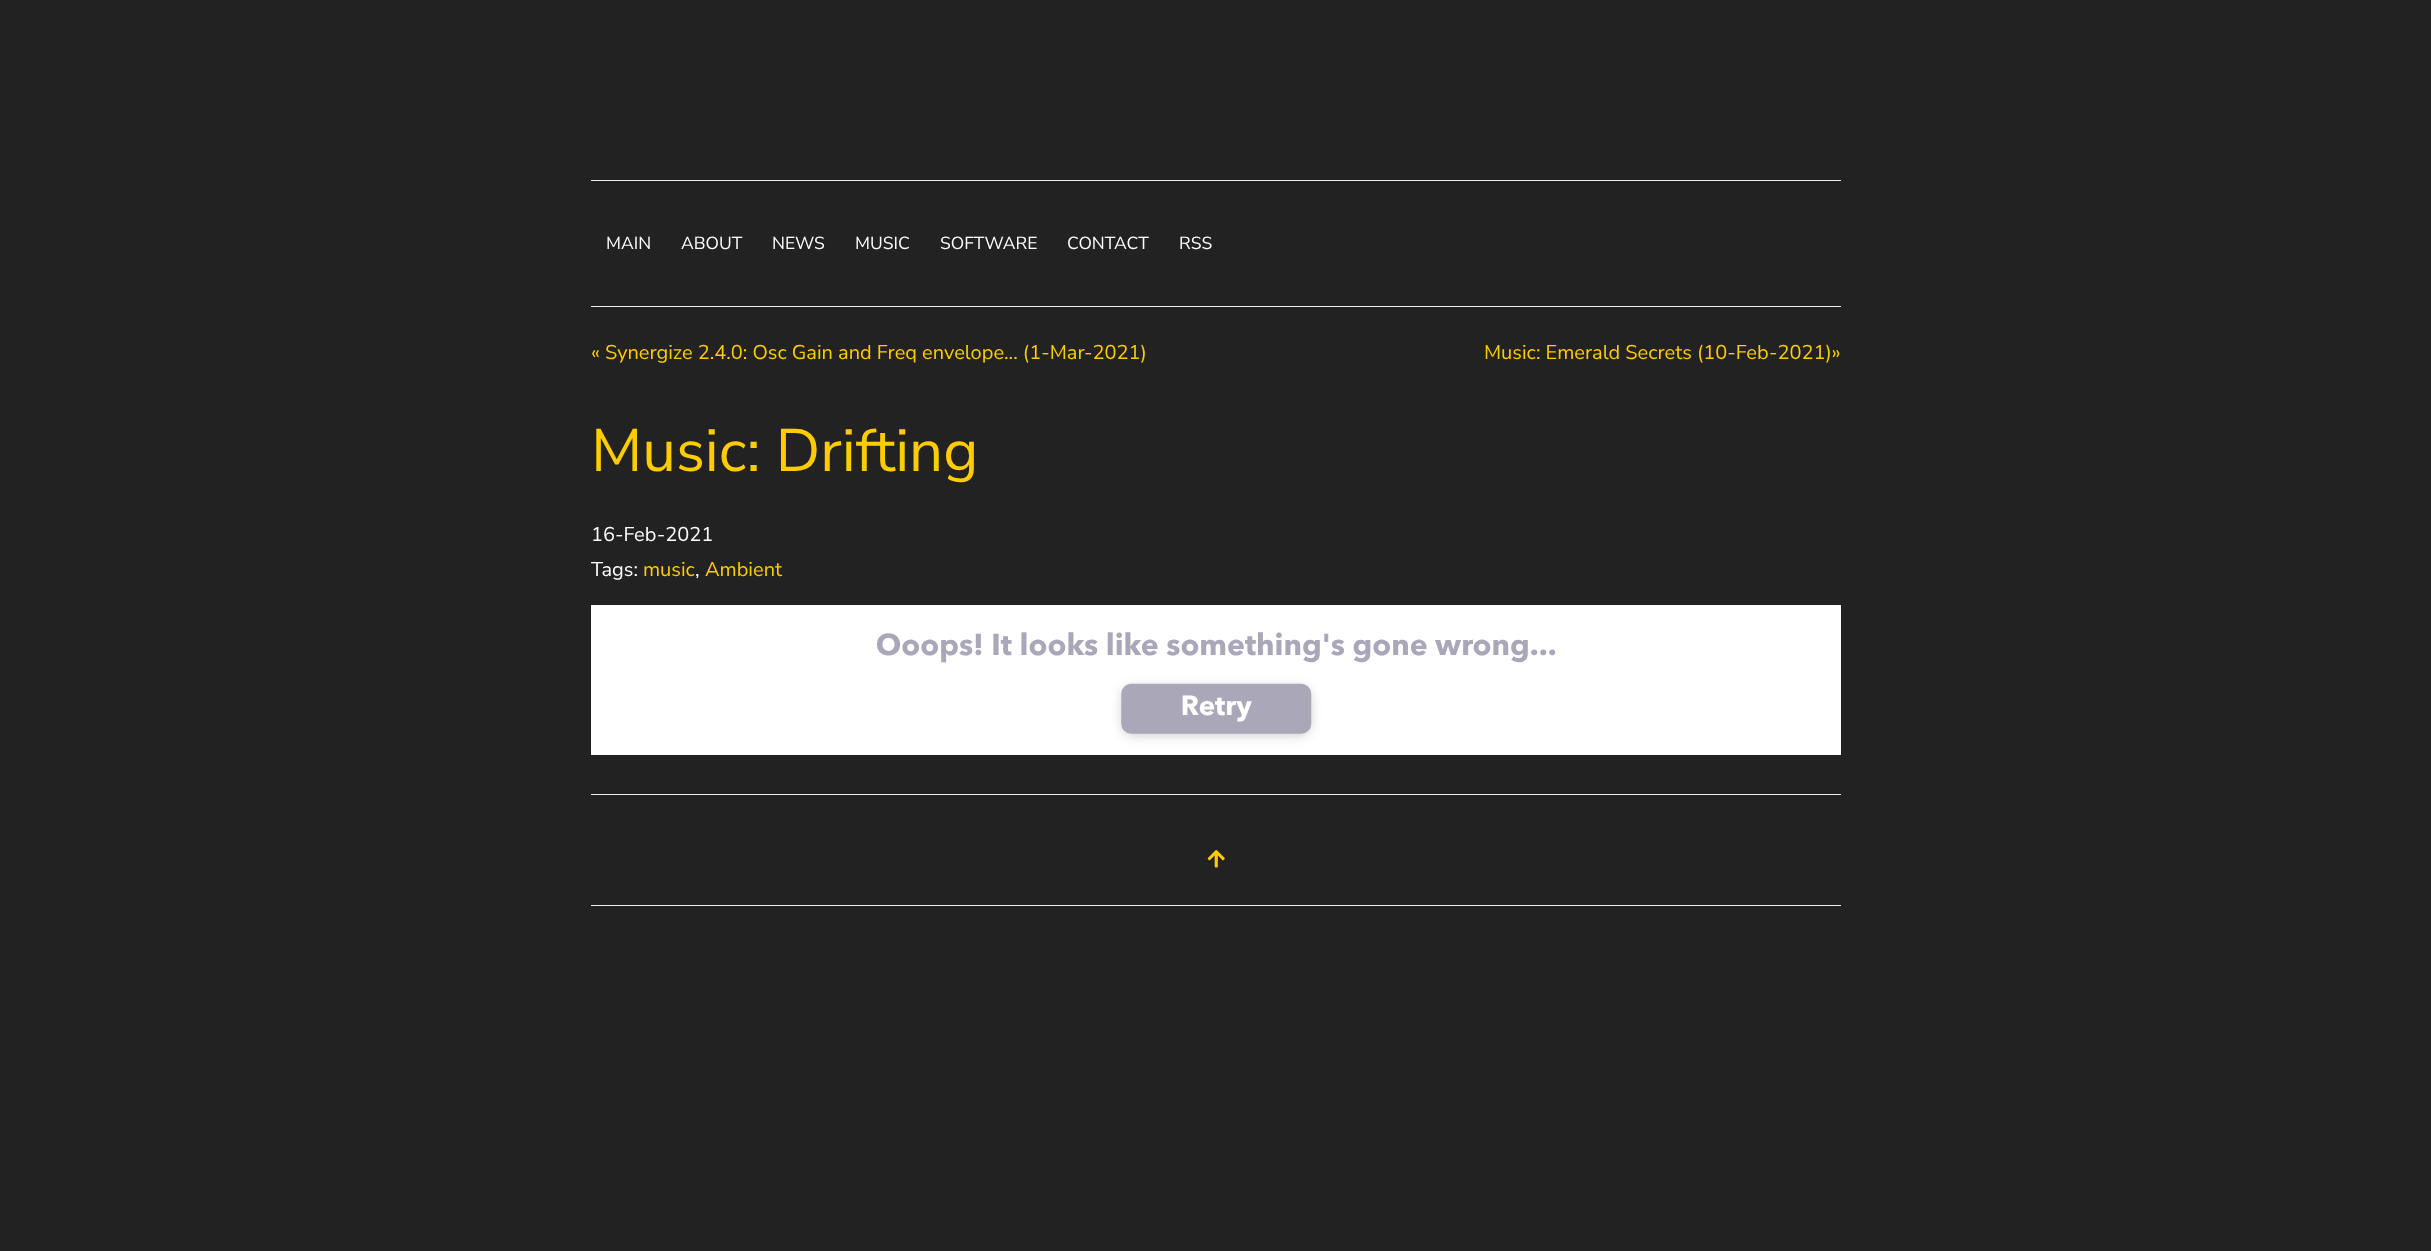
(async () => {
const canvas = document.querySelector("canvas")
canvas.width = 2431
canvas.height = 1251
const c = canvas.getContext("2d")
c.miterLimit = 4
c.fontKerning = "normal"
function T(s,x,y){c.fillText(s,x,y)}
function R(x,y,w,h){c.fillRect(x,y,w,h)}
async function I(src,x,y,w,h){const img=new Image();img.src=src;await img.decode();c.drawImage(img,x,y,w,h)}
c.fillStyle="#222"
R(0,0,2431,1251)
c.fillStyle="#efefef"
R(591,180,1250,1)
c.font="17.5px Nunito Sans"
c.fillStyle="#fff"
T("MAIN",606,249)
T("ABOUT",681,249)
T("NEWS",772,249)
T("MUSIC",855,249)
T("SOFTWARE",940,249)
T("CONTACT",1067,249)
T("RSS",1179,249)
c.fillStyle="#efefef"
R(591,306,1250,1)
c.font="20px Nunito Sans"
c.fillStyle="#fc0"
T("« Synergize 2.4.0: Osc Gain and Freq envelope... (1-Mar-2021)",591,359)
T("Music: Emerald Secrets (10-Feb-2021)»",1484,359)
c.font="60px Nunito Sans"
T("Music: Drifting",591,471)
c.font="20px Nunito Sans"
c.fillStyle="#fff"
T("16-Feb-2021",591,541)
T("Tags:",591,576)
c.fillStyle="#fc0"
T("music",643,576)
c.fillStyle="#fff"
T(",",695,576)
c.fillStyle="#fc0"
T("Ambient",705,576)
await I("1.png",591,605,1250,150)
c.fillStyle="#efefef"
R(591,794,1250,1)
await I("2.png",1207,850,18,18)
R(591,905,1250,1)
})()
